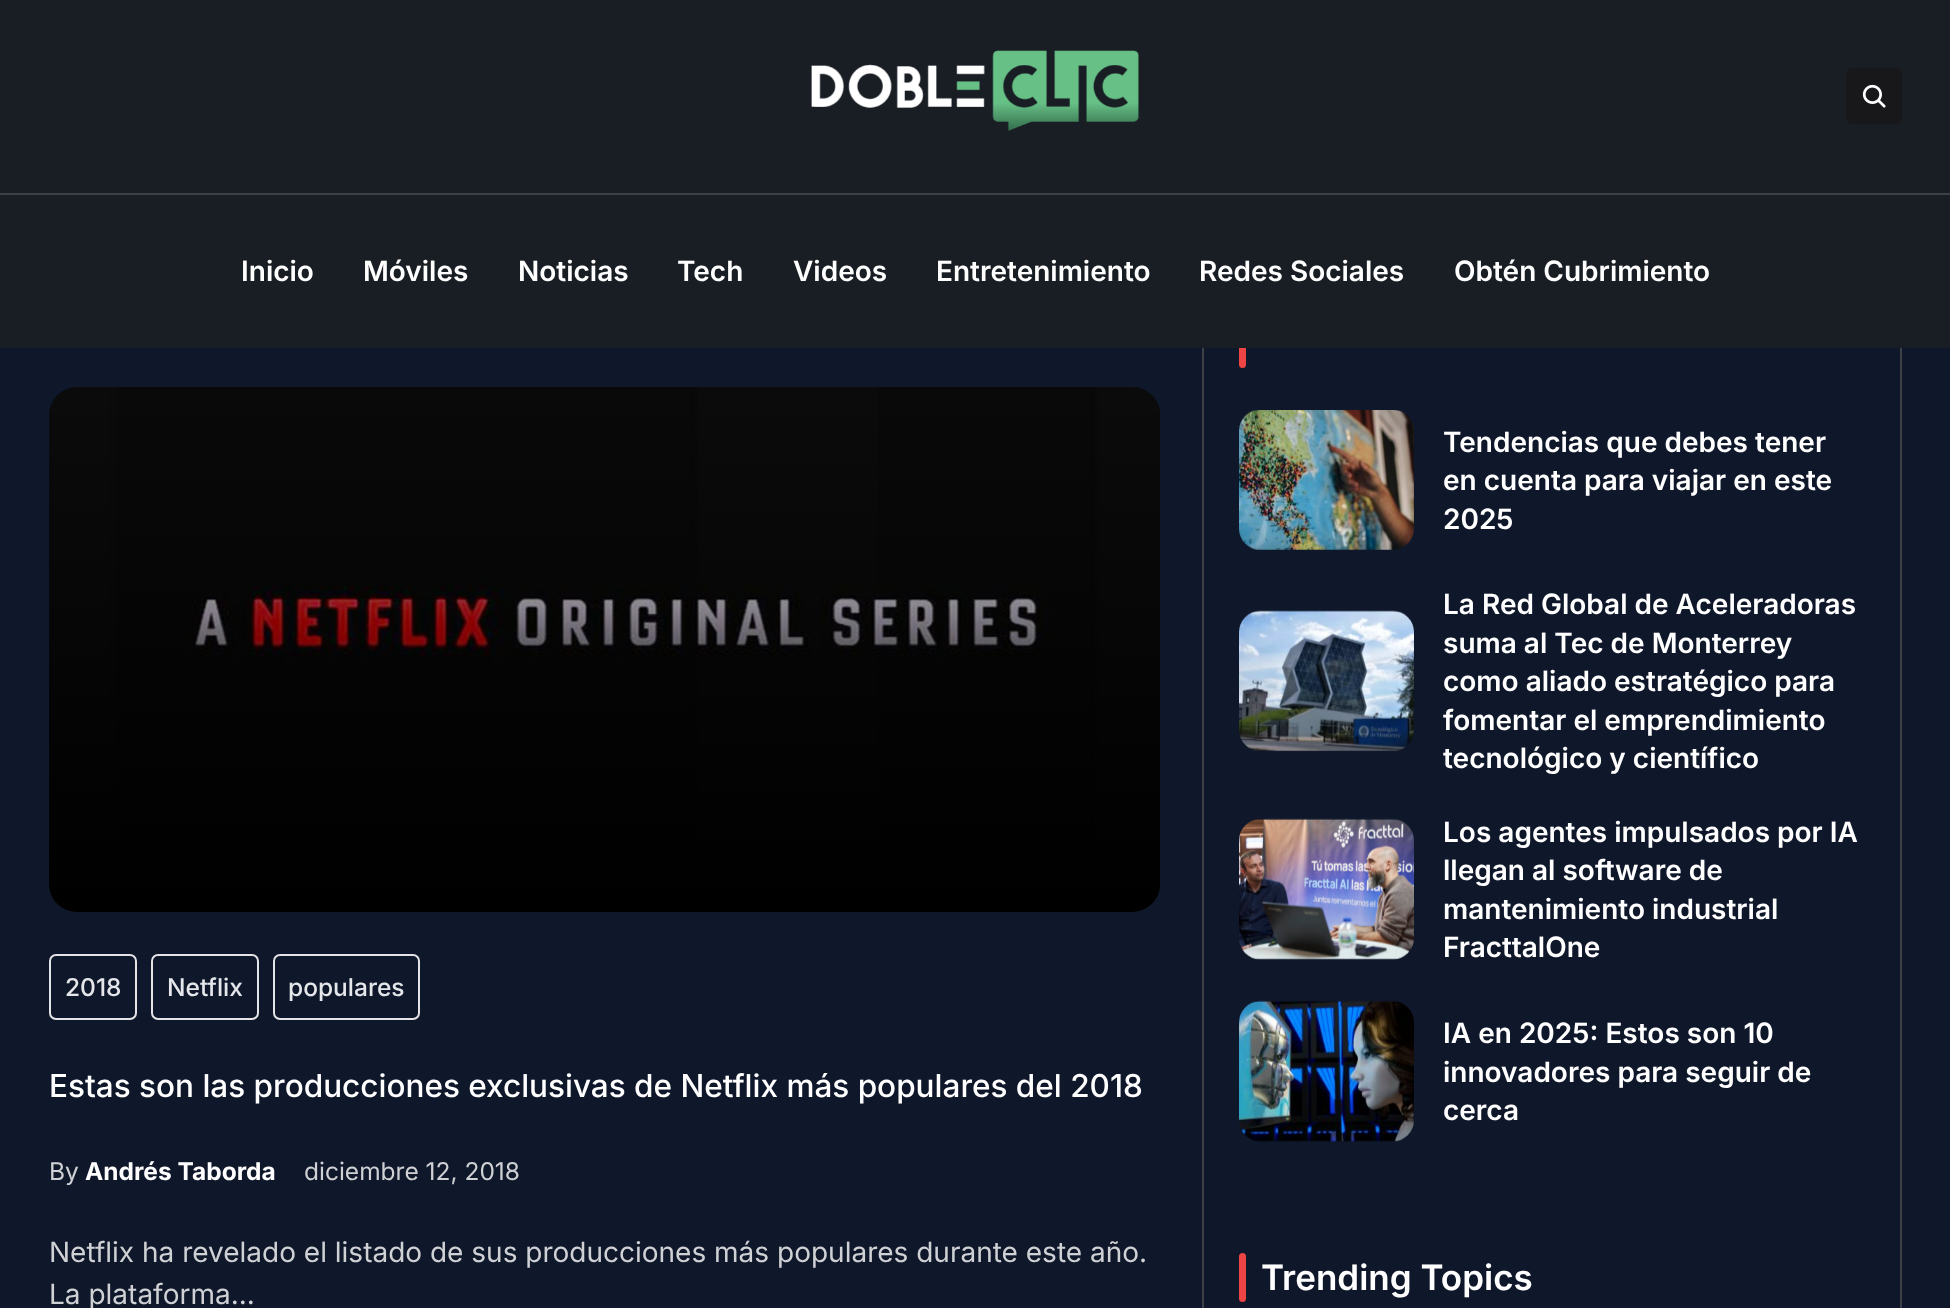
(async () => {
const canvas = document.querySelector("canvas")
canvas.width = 1950
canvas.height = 1308
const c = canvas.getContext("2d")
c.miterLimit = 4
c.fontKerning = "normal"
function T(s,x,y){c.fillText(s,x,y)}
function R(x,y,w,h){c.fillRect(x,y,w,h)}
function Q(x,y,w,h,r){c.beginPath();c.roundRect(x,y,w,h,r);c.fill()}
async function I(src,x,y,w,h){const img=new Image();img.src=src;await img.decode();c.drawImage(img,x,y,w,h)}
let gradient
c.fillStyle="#0f172a"
R(0,0,1950,1308)
c.strokeStyle="#3f3f46"
c.lineWidth=2
c.strokeRect(1203,283,698,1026)
c.fillStyle="#ef4444"
Q(1239,319,7,49,3.5)
c.fillStyle="#191e25"
R(0,0,1950,348)
c.fillStyle="#3f3f46"
R(0,193,1950,2)
await I("1.png",811,50,328,81)
c.fillStyle="#18181b"
Q(1846,68,56,56,7)
await I("2.png",1862,84,24,24)
c.font="600 28px Inter"
c.fillStyle="#fff"
T("Inicio",241,281)
T("Móviles",363,281)
T("Noticias",518,281)
T("Tech",677,281)
T("Videos",793,281)
T("Entretenimiento",936,281)
T("Redes Sociales",1199,281)
T("Obtén Cubrimiento",1454,281)
await I("3.png",49,387,1111,525)
gradient = c.createLinearGradient(605,912,605,387)
gradient.addColorStop(0,"#000")
gradient.addColorStop(1,"#00000000")
c.fillStyle = gradient
Q(49,387,1111,525,28)
c.beginPath()
c.roundRect(50,955,86,64,6)
c.strokeStyle="#e4e4e7"
c.stroke()
c.font="500 24.5px Inter"
c.fillStyle="#e5e7eb"
T("2018",65,996)
c.beginPath()
c.roundRect(152,955,106,64,6)
c.stroke()
T("Netflix",167,996)
c.beginPath()
c.roundRect(274,955,145,64,6)
c.stroke()
T("populares",288,996)
c.font="500 31.5px Inter"
c.fillStyle="#fff"
T("Estas son las producciones exclusivas de Netflix más populares del 2018",49,1097)
c.font="24.5px Inter"
c.fillStyle="#cfd1d4"
T("By",49,1180)
c.font="bold 24.5px Inter"
c.fillStyle="#fff"
T("Andrés Taborda",85,1180)
c.font="24.5px Inter"
c.fillStyle="#cfd1d4"
T("diciembre 12, 2018",304,1180)
c.font="28px Inter"
T("Netflix ha revelado el listado de sus producciones más populares durante este año.",49,1262)
T("La plataforma...",49,1304)
await I("4.png",1239,410,175,140)
c.font="600 28px Inter"
c.fillStyle="#fff"
T("Tendencias que debes tener",1443,452)
T("en cuenta para viajar en este",1443,490)
T("2025",1443,529)
await I("5.png",1239,610,175,142)
T("La Red Global de Aceleradoras",1443,614)
T("suma al Tec de Monterrey",1443,653)
T("como aliado estratégico para",1443,691)
T("fomentar el emprendimiento",1443,730)
T("tecnológico y científico",1443,768)
await I("6.png",1239,818,175,142)
T("Los agentes impulsados por IA",1443,842)
T("llegan al software de",1443,880)
T("mantenimiento industrial",1443,919)
T("FracttalOne",1443,957)
await I("7.png",1239,1000,175,142)
T("IA en 2025: Estos son 10",1443,1043)
T("innovadores para seguir de",1443,1082)
T("cerca",1443,1120)
c.fillStyle="#ef4444"
Q(1239,1253,7,49,3.5)
c.font="600 35px Inter"
c.fillStyle="#fff"
T("Trending Topics",1261,1290)
})()
